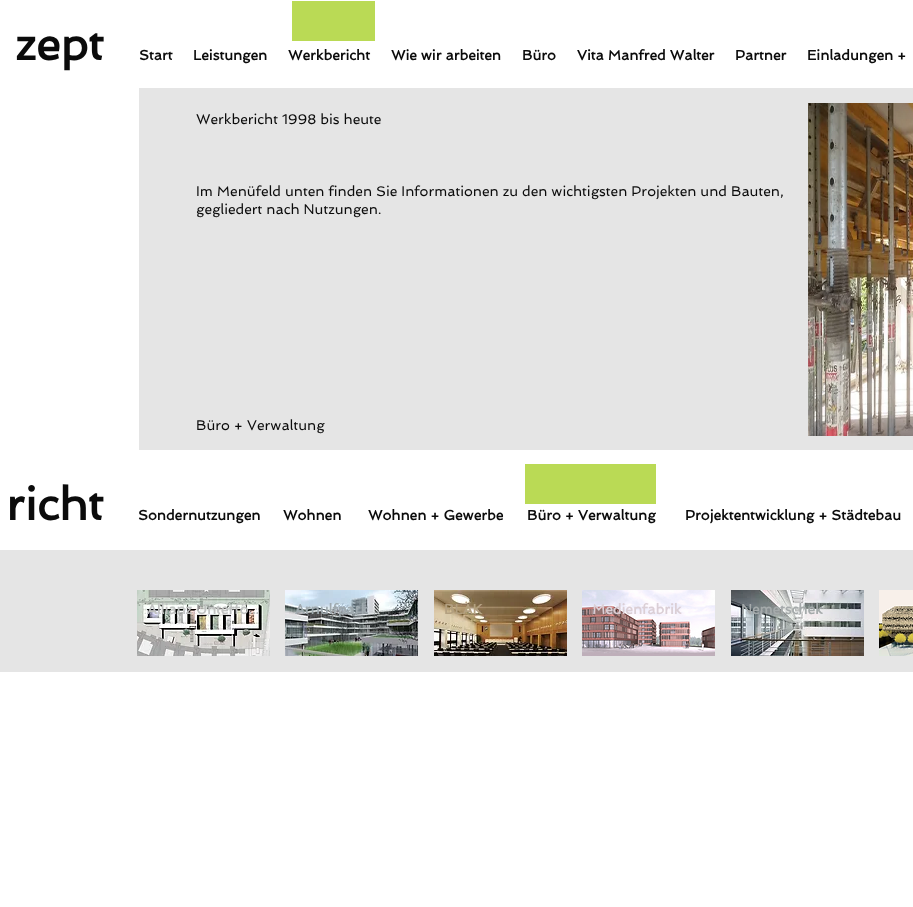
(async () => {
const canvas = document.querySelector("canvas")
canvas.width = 913
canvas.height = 907
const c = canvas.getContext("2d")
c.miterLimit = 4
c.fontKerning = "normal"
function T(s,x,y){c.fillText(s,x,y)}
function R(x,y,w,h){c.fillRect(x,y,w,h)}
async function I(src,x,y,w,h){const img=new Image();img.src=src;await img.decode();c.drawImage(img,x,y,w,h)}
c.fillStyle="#fff"
R(0,0,913,907)
c.font="bold 45px Spinnaker"
c.fillStyle="#0b0b0b"
T("zept",15,60)
c.font="bold 14px Spinnaker"
T("Start",139,60)
T("Leistungen",193,60)
T("Werkbericht",288,60)
T("Wie wir arbeiten",391,60)
T("Büro",522,60)
T("Vita Manfred Walter",577,60)
T("Partner",735,60)
T("Einladungen +",807,60)
c.fillStyle="#e5e5e5"
R(139,88,774,362)
c.fillStyle="#bada55"
R(292,1,83,40)
c.font="14px Spinnaker"
c.fillStyle="#0b0b0b"
T("Werkbericht 1998 bis heute",196,124)
T("Im Menüfeld unten finden Sie Informationen zu den wichtigsten Projekten und Bauten,",196,196)
T("gegliedert nach Nutzungen.",196,214)
T("Büro + Verwaltung",196,430)
await I("1.png",808,103,105,333)
c.font="bold 45px Spinnaker"
T("richt",6,520)
c.fillStyle="#bada55"
R(525,464,131,40)
c.font="bold 14px Spinnaker"
c.fillStyle="#0b0b0b"
T("Sondernutzungen",138,520)
T("Wohnen",283,520)
T("Wohnen + Gewerbe",368,520)
T("Büro + Verwaltung",527,520)
T("Projektentwicklung + Städtebau",685,520)
c.fillStyle="#e5e5e5"
R(0,550,913,122)
await I("2.png",137,590,133,66)
c.fillStyle="#c0c2c1"
T("Allianz Unterfö...",147,614)
await I("3.png",285,590,133,66)
c.fillStyle="#9fa9ae"
T("Arnulfpark",295,614)
await I("4.png",434,590,133,66)
c.fillStyle="#b3a080"
T("BLÄK",444,614)
await I("5.png",582,590,133,66)
c.fillStyle="#dbcfd6"
T("Medienfabrik",592,614)
await I("6.png",731,590,133,66)
c.fillStyle="#a5aaab"
T("Nemetschek",741,614)
await I("7.png",879,590,34,66)
})()
